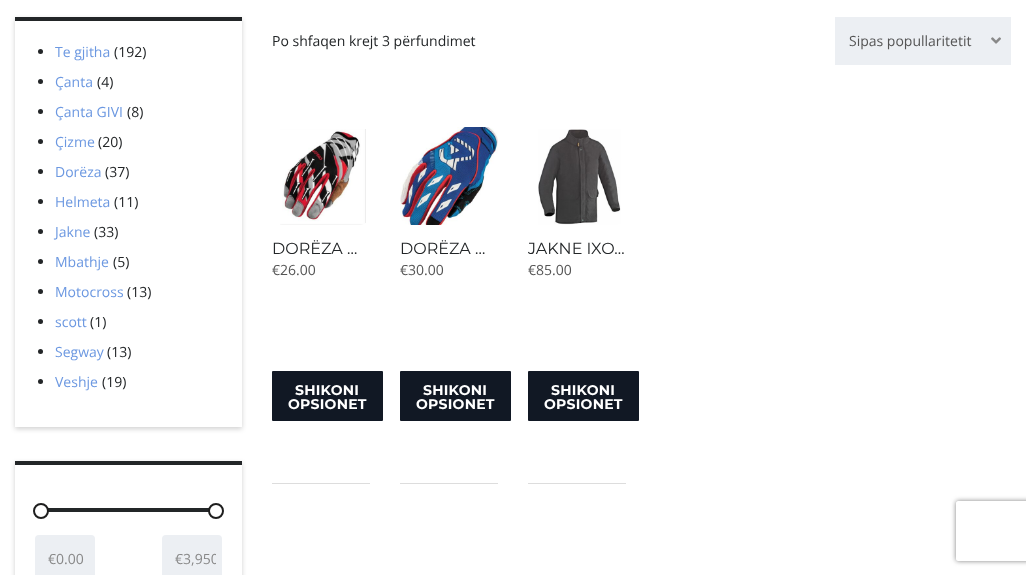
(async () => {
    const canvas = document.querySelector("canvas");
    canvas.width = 1026;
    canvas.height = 575;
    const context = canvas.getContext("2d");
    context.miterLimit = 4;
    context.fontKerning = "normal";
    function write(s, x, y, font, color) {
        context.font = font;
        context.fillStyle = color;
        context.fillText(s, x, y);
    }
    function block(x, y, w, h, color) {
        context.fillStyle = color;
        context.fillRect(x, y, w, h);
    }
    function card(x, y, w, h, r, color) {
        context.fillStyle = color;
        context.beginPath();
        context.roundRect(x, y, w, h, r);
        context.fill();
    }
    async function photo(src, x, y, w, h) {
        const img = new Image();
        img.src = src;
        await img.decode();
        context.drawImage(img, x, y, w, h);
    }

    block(0, 0, 1026, 575, "rgb(255, 255, 255)");
    context.save();
    context.beginPath();
    context.moveTo(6, 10);
    context.lineTo(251, 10);
    context.lineTo(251, 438);
    context.lineTo(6, 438);
    context.closePath();
    context.moveTo(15, 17);
    context.lineTo(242, 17);
    context.lineTo(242, 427);
    context.lineTo(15, 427);
    context.closePath();
    context.clip("evenodd");
    context.fillStyle = "rgba(0, 0, 0, 0.18)";
    context.filter = "blur(2.5px)";
    context.beginPath();
    context.rect(15, 19, 227, 410);
    context.fill();
    context.filter = "none";
    context.restore();
    block(15, 17, 227, 4, "rgb(35, 38, 40)");
    context.beginPath();
    context.arc(40.5, 51.5, 2.5, 0, Math.PI * 2);
    context.fill();
    write("Te gjitha", 55, 57, "14px Open Sans", "rgb(108, 152, 225)");
    write("(192)", 114, 57, "14px Open Sans", "rgb(35, 38, 40)");
    context.beginPath();
    context.arc(40.5, 81.5, 2.5, 0, Math.PI * 2);
    context.fill();
    write("Çanta", 55, 87, "14px Open Sans", "rgb(108, 152, 225)");
    write("(4)", 97, 87, "14px Open Sans", "rgb(35, 38, 40)");
    context.beginPath();
    context.arc(40.5, 111.5, 2.5, 0, Math.PI * 2);
    context.fill();
    write("Çanta GIVI", 55, 117, "14px Open Sans", "rgb(108, 152, 225)");
    write("(8)", 127, 117, "14px Open Sans", "rgb(35, 38, 40)");
    context.beginPath();
    context.arc(40.5, 141.5, 2.5, 0, Math.PI * 2);
    context.fill();
    write("Çizme", 55, 147, "14px Open Sans", "rgb(108, 152, 225)");
    write("(20)", 98, 147, "14px Open Sans", "rgb(35, 38, 40)");
    context.beginPath();
    context.arc(40.5, 171.5, 2.5, 0, Math.PI * 2);
    context.fill();
    write("Dorëza", 55, 177, "14px Open Sans", "rgb(108, 152, 225)");
    write("(37)", 105, 177, "14px Open Sans", "rgb(35, 38, 40)");
    context.beginPath();
    context.arc(40.5, 201.5, 2.5, 0, Math.PI * 2);
    context.fill();
    write("Helmeta", 55, 207, "14px Open Sans", "rgb(108, 152, 225)");
    write("(11)", 114, 207, "14px Open Sans", "rgb(35, 38, 40)");
    context.beginPath();
    context.arc(40.5, 231.5, 2.5, 0, Math.PI * 2);
    context.fill();
    write("Jakne", 55, 237, "14px Open Sans", "rgb(108, 152, 225)");
    write("(33)", 94, 237, "14px Open Sans", "rgb(35, 38, 40)");
    context.beginPath();
    context.arc(40.5, 261.5, 2.5, 0, Math.PI * 2);
    context.fill();
    write("Mbathje", 55, 267, "14px Open Sans", "rgb(108, 152, 225)");
    write("(5)", 113, 267, "14px Open Sans", "rgb(35, 38, 40)");
    context.beginPath();
    context.arc(40.5, 291.5, 2.5, 0, Math.PI * 2);
    context.fill();
    write("Motocross", 55, 297, "14px Open Sans", "rgb(108, 152, 225)");
    write("(13)", 127, 297, "14px Open Sans", "rgb(35, 38, 40)");
    context.beginPath();
    context.arc(40.5, 321.5, 2.5, 0, Math.PI * 2);
    context.fill();
    write("scott", 55, 327, "14px Open Sans", "rgb(108, 152, 225)");
    write("(1)", 90, 327, "14px Open Sans", "rgb(35, 38, 40)");
    context.beginPath();
    context.arc(40.5, 351.5, 2.5, 0, Math.PI * 2);
    context.fill();
    write("Segway", 55, 357, "14px Open Sans", "rgb(108, 152, 225)");
    write("(13)", 107, 357, "14px Open Sans", "rgb(35, 38, 40)");
    context.beginPath();
    context.arc(40.5, 381.5, 2.5, 0, Math.PI * 2);
    context.fill();
    write("Veshje", 55, 387, "14px Open Sans", "rgb(108, 152, 225)");
    write("(19)", 102, 387, "14px Open Sans", "rgb(35, 38, 40)");
    context.save();
    context.beginPath();
    context.moveTo(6, 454);
    context.lineTo(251, 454);
    context.lineTo(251, 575);
    context.lineTo(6, 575);
    context.closePath();
    context.moveTo(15, 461);
    context.lineTo(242, 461);
    context.lineTo(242, 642);
    context.lineTo(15, 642);
    context.closePath();
    context.clip("evenodd");
    context.fillStyle = "rgba(0, 0, 0, 0.18)";
    context.filter = "blur(2.5px)";
    context.beginPath();
    context.rect(15, 463, 227, 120);
    context.fill();
    context.filter = "none";
    context.restore();
    block(15, 461, 227, 4, "rgb(35, 38, 40)");
    block(48, 508, 161, 4, "rgb(35, 38, 40)");
    context.fillStyle = "rgb(255, 255, 255)";
    context.beginPath();
    context.arc(41, 511, 7, 0, Math.PI * 2);
    context.fill();
    context.strokeStyle = "rgb(30, 30, 30)";
    context.lineWidth = 2;
    context.stroke();
    context.beginPath();
    context.arc(216, 511, 7, 0, Math.PI * 2);
    context.fill();
    context.stroke();
    card(35, 535, 60, 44, 4, "rgb(236, 239, 243)");
    write("€0.00", 48, 564, "14px Open Sans", "rgb(136, 136, 136)");
    card(162, 535, 60, 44, 4, "rgb(236, 239, 243)");
    context.save();
    context.beginPath();
    context.rect(175, 535, 41, 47);
    context.clip();
    write("€3,950", 175, 564, "14px Open Sans", "rgb(136, 136, 136)");
    context.restore();
    write("Po shfaqen krejt 3 përfundimet", 272, 46, "14px Open Sans", "rgb(35, 38, 40)");
    block(835, 17, 176, 48, "rgb(236, 239, 243)");
    write("Sipas popullaritetit", 849, 46, "14px Open Sans", "rgb(85, 85, 85)");
    await photo("media/1.png", 991, 37, 10, 7);
    block(272, 483, 98, 1, "rgb(221, 221, 221)");
    await photo("media/2.png", 280, 129, 86, 96);
    write("DORËZA …", 272, 254, "16px Montserrat", "rgb(35, 38, 40)");
    write("€26.00", 272, 275, "14px Open Sans", "rgb(85, 85, 85)");
    card(272, 371, 111, 50, 1, "rgb(17, 24, 36)");
    context.letterSpacing = "0.25px";
    write("SHIKONI", 295, 395, "bold 14px Montserrat", "rgb(255, 255, 255)");
    write("OPSIONET", 288, 409, "bold 14px Montserrat", "rgb(255, 255, 255)");
    block(400, 483, 98, 1, "rgb(221, 221, 221)");
    await photo("media/3.png", 400, 127, 98, 98);
    context.letterSpacing = "0px";
    write("DORËZA …", 400, 254, "16px Montserrat", "rgb(35, 38, 40)");
    write("€30.00", 400, 275, "14px Open Sans", "rgb(85, 85, 85)");
    card(400, 371, 111, 50, 1, "rgb(17, 24, 36)");
    context.letterSpacing = "0.25px";
    write("SHIKONI", 423, 395, "bold 14px Montserrat", "rgb(255, 255, 255)");
    write("OPSIONET", 416, 409, "bold 14px Montserrat", "rgb(255, 255, 255)");
    block(528, 483, 98, 1, "rgb(221, 221, 221)");
    await photo("media/4.png", 538, 129, 83, 96);
    context.letterSpacing = "0px";
    write("JAKNE IXO…", 528, 254, "16px Montserrat", "rgb(35, 38, 40)");
    write("€85.00", 528, 275, "14px Open Sans", "rgb(85, 85, 85)");
    card(528, 371, 111, 50, 1, "rgb(17, 24, 36)");
    context.letterSpacing = "0.25px";
    write("SHIKONI", 551, 395, "bold 14px Montserrat", "rgb(255, 255, 255)");
    write("OPSIONET", 544, 409, "bold 14px Montserrat", "rgb(255, 255, 255)");
    context.save();
    context.beginPath();
    context.moveTo(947, 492);
    context.lineTo(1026, 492);
    context.lineTo(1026, 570);
    context.lineTo(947, 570);
    context.closePath();
    context.moveTo(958, 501);
    context.lineTo(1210, 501);
    context.bezierCurveTo(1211, 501, 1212, 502, 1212, 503);
    context.lineTo(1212, 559);
    context.bezierCurveTo(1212, 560, 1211, 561, 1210, 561);
    context.lineTo(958, 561);
    context.bezierCurveTo(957, 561, 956, 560, 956, 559);
    context.lineTo(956, 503);
    context.bezierCurveTo(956, 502, 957, 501, 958, 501);
    context.closePath();
    context.clip("evenodd");
    context.fillStyle = "rgb(128, 128, 128)";
    context.filter = "blur(2.5px)";
    context.beginPath();
    context.roundRect(956, 501, 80, 60, 2);
    context.fill();
    context.filter = "none";
    context.restore();
})();
